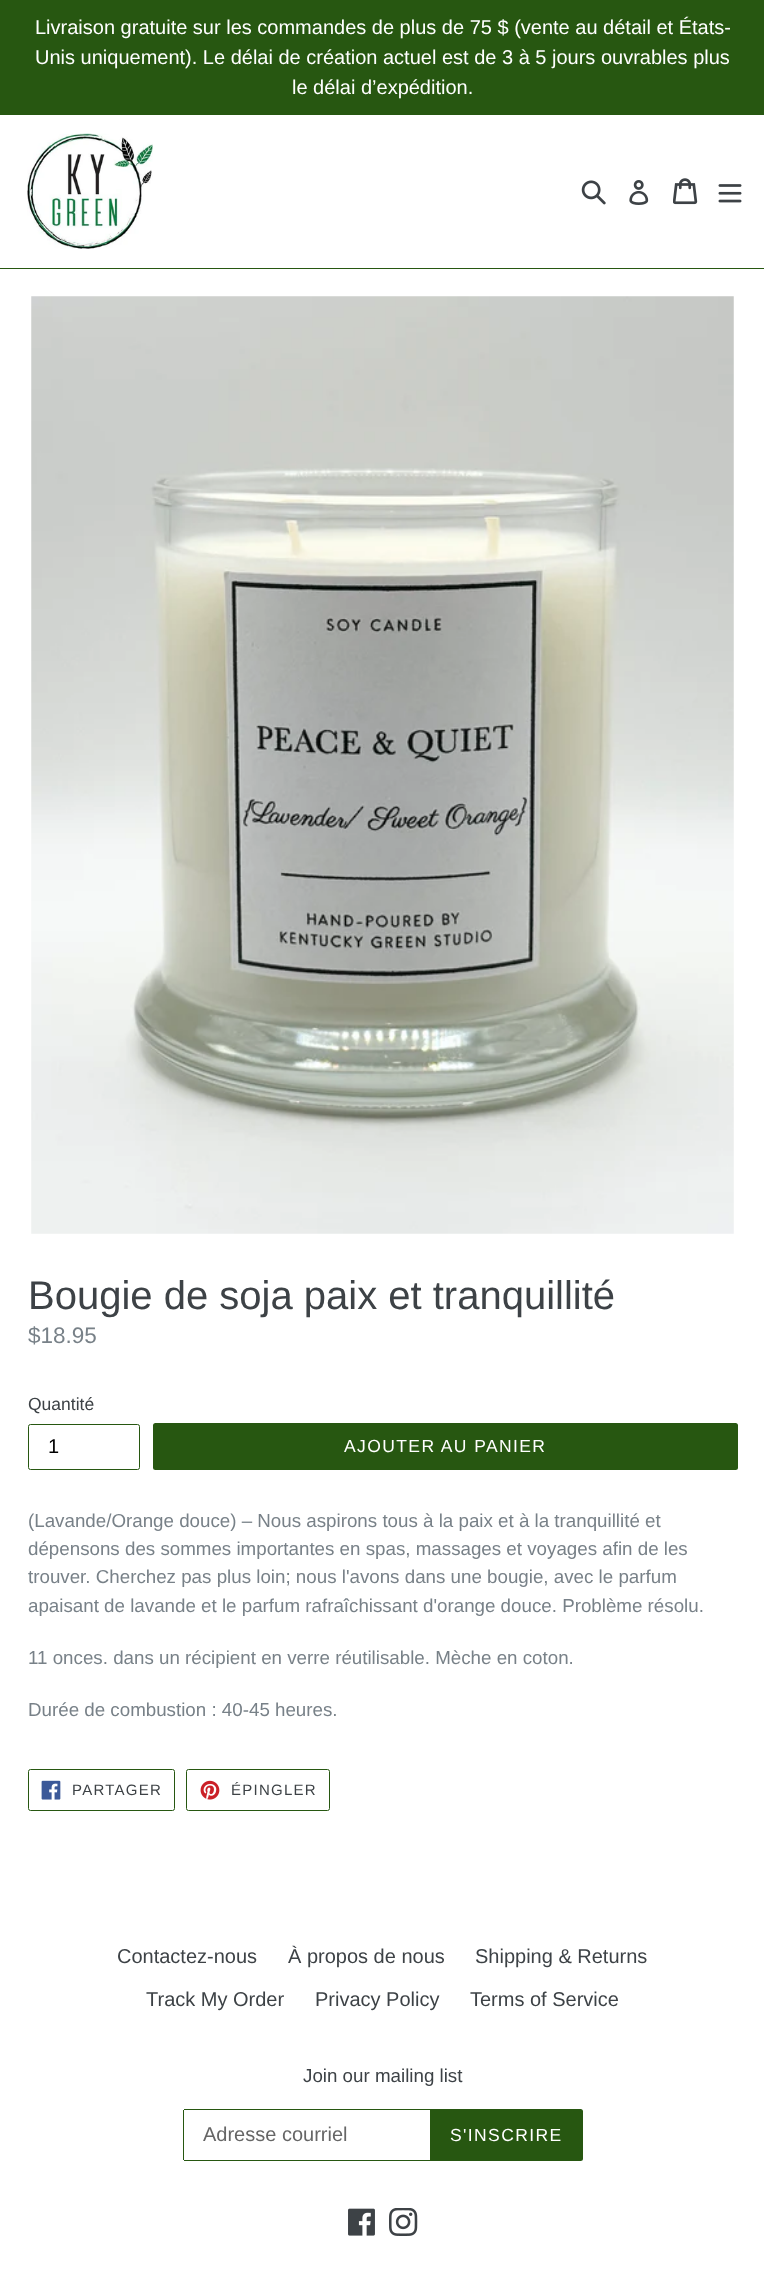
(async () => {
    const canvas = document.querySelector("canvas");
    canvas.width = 764;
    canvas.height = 2269;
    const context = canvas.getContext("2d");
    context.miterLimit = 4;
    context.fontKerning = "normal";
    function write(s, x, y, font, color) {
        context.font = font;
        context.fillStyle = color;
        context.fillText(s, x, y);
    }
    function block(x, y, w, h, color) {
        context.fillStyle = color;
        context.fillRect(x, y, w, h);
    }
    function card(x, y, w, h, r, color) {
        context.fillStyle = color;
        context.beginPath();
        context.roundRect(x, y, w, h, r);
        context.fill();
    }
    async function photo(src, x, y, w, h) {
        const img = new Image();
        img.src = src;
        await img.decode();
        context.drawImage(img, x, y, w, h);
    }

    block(0, 0, 764, 2269, "rgb(255, 255, 255)");
    block(0, 0, 764, 115, "rgb(39, 87, 17)");
    write("Livraison gratuite sur les commandes de plus de 75 $ (vente au détail et États-", 35, 34, "20px Liberation Sans", "rgb(255, 255, 255)");
    write("Unis uniquement). Le délai de création actuel est de 3 à 5 jours ouvrables plus", 35, 64, "20px Liberation Sans", "rgb(255, 255, 255)");
    write("le délai d’expédition.", 292, 94, "20px Liberation Sans", "rgb(255, 255, 255)");
    block(0, 268, 764, 1, "rgb(39, 87, 17)");
    await photo("media/1.png", 27, 133, 126, 116);
    await photo("media/2.png", 581, 180, 25, 25);
    await photo("media/3.png", 629, 180, 20, 25);
    await photo("media/4.png", 673, 178, 25, 27);
    await photo("media/5.png", 718, 184, 24, 19);
    await photo("media/6.png", 31, 296, 703, 938);
    write("Bougie de soja paix et tranquillité", 28, 1309, "40px Liberation Sans", "rgb(61, 66, 70)");
    write("$18.95", 28, 1343, "22.5px Liberation Sans", "rgb(120, 129, 136)");
    write("Quantité", 28, 1410, "17.5px Liberation Sans", "rgb(61, 66, 70)");
    context.beginPath();
    context.roundRect(28.5, 1424.5, 111, 45, 2);
    context.strokeStyle = "rgb(39, 87, 17)";
    context.stroke();
    write("1", 48, 1453, "20px Liberation Sans", "rgb(0, 0, 0)");
    card(153, 1423, 585, 47, 2.5, "rgb(39, 87, 17)");
    context.letterSpacing = "1.4px";
    write("AJOUTER AU PANIER", 344, 1452, "17.5px Liberation Sans", "rgb(255, 255, 255)");
    context.letterSpacing = "0px";
    write("(Lavande/Orange douce) – Nous aspirons tous à la paix et à la tranquillité et", 28, 1527, "18.75px Liberation Sans", "rgb(120, 129, 136)");
    write("dépensons des sommes importantes en spas, massages et voyages afin de les", 28, 1555, "18.75px Liberation Sans", "rgb(120, 129, 136)");
    write("trouver. Cherchez pas plus loin; nous l'avons dans une bougie, avec le parfum", 28, 1583, "18.75px Liberation Sans", "rgb(120, 129, 136)");
    write("apaisant de lavande et le parfum rafraîchissant d'orange douce. Problème résolu.", 28, 1612, "18.75px Liberation Sans", "rgb(120, 129, 136)");
    write("11 onces. dans un récipient en verre réutilisable. Mèche en coton.", 28, 1664, "18.75px Liberation Sans", "rgb(120, 129, 136)");
    write("Durée de combustion : 40-45 heures.", 28, 1716, "18.75px Liberation Sans", "rgb(120, 129, 136)");
    context.beginPath();
    context.roundRect(28.5, 1769.5, 146, 41, 2);
    context.stroke();
    await photo("media/7.png", 41, 1780, 20, 20);
    context.letterSpacing = "1.25px";
    write("PARTAGER", 72, 1795, "15px Liberation Sans", "rgb(61, 66, 70)");
    context.beginPath();
    context.roundRect(186.5, 1769.5, 143, 41, 2);
    context.stroke();
    await photo("media/8.png", 200, 1780, 20, 20);
    write("ÉPINGLER", 231, 1795, "15px Liberation Sans", "rgb(61, 66, 70)");
    context.letterSpacing = "0px";
    write("Contactez-nous", 117, 1963, "20px Liberation Sans", "rgb(61, 66, 70)");
    write("À propos de nous", 288, 1963, "20px Liberation Sans", "rgb(61, 66, 70)");
    write("Shipping & Returns", 475, 1963, "20px Liberation Sans", "rgb(61, 66, 70)");
    write("Track My Order", 146, 2006, "20px Liberation Sans", "rgb(61, 66, 70)");
    write("Privacy Policy", 315, 2006, "20px Liberation Sans", "rgb(61, 66, 70)");
    write("Terms of Service", 470, 2006, "20px Liberation Sans", "rgb(61, 66, 70)");
    write("Join our mailing list", 303, 2082, "18.75px Liberation Sans", "rgb(61, 66, 70)");
    block(184, 2109, 246, 1, "rgb(39, 87, 17)");
    block(184, 2160, 246, 1, "rgb(39, 87, 17)");
    block(183, 2110, 1, 50, "rgb(39, 87, 17)");
    write("Adresse courriel", 203, 2141, "20px Liberation Sans", "rgb(102, 102, 102)");
    context.fillStyle = "rgb(39, 87, 17)";
    context.beginPath();
    context.roundRect(430, 2109, 153, 52, [0, 2.5, 2.5, 0]);
    context.fill();
    context.letterSpacing = "1.4px";
    write("S'INSCRIRE", 450, 2141, "17.5px Liberation Sans", "rgb(255, 255, 255)");
    await photo("media/9.png", 348, 2208, 27, 28);
    await photo("media/10.png", 389, 2208, 29, 28);
})();
